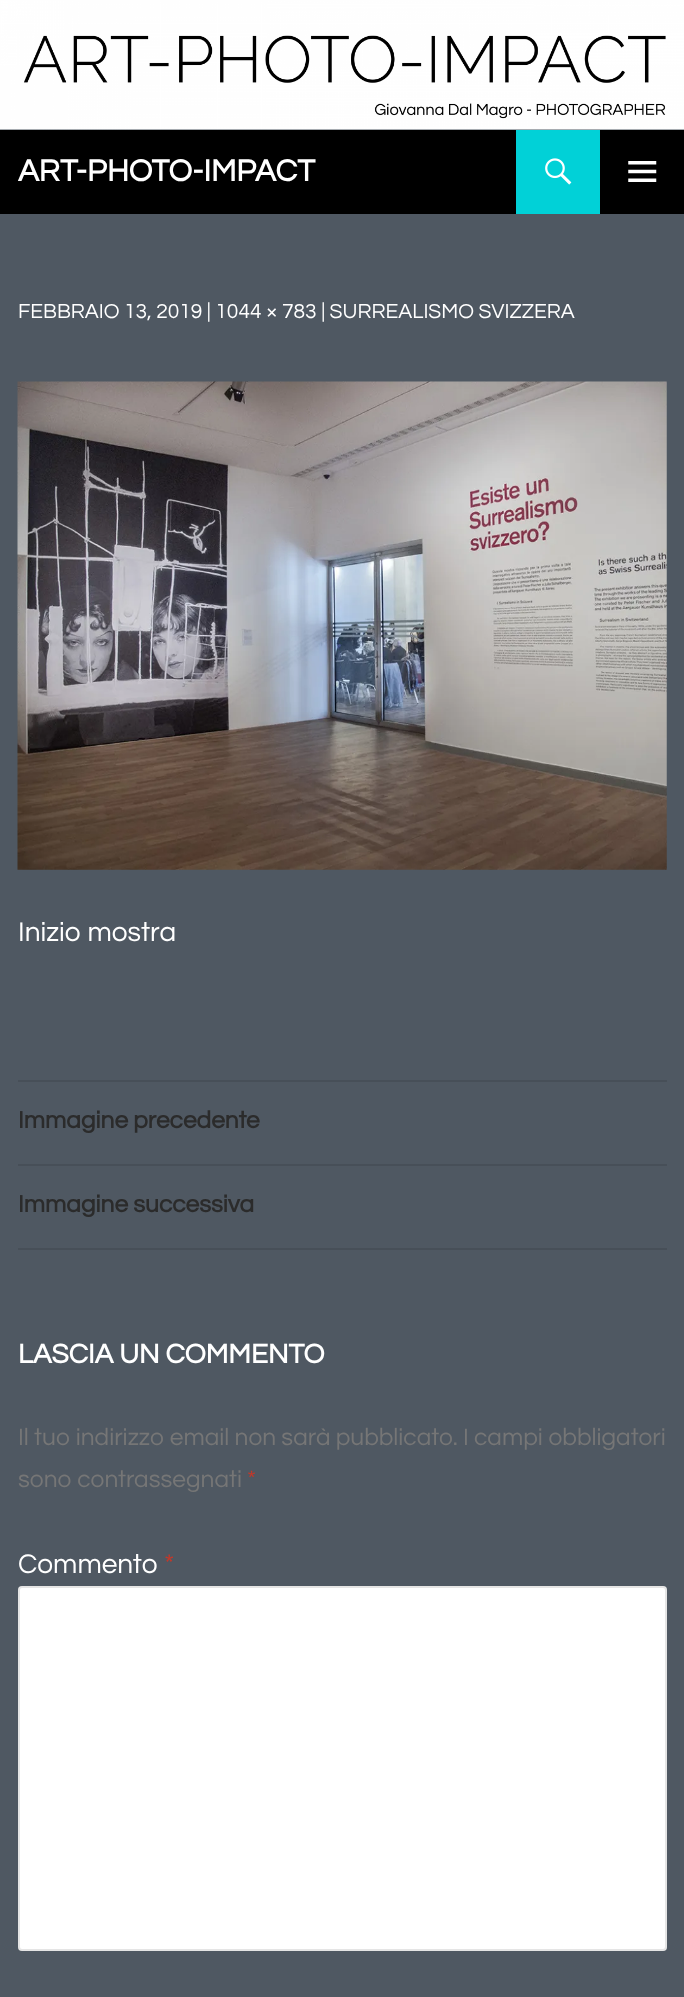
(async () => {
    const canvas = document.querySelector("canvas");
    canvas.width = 684;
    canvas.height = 1997;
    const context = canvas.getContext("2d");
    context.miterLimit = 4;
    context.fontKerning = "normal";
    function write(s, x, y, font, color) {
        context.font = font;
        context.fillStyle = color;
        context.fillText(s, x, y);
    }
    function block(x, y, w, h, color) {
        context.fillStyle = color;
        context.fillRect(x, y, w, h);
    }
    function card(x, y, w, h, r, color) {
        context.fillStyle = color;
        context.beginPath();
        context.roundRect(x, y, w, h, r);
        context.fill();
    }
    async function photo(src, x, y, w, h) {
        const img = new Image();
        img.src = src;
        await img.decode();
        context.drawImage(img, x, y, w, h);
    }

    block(0, 0, 684, 1997, "rgb(79, 88, 98)");
    await photo("media/1.png", 0, 0, 684, 130);
    block(0, 130, 684, 84, "rgb(0, 0, 0)");
    write("ART-PHOTO-IMPACT", 18, 181, "bold 31.5px Questrial", "rgb(255, 255, 255)");
    block(516, 130, 84, 84, "rgb(1, 209, 215)");
    await photo("media/2.png", 545, 158, 27, 27);
    await photo("media/3.png", 628, 161, 29, 21);
    write("FEBBRAIO 13, 2019 | 1044 × 783 | SURREALISMO SVIZZERA", 18, 318, "21px Questrial", "rgb(255, 255, 255)");
    await photo("media/4.png", 17, 381, 650, 489);
    write("Inizio mostra", 18, 941, "28px Questrial", "rgb(255, 255, 255)");
    block(18, 1080, 649, 2, "rgb(71, 79, 88)");
    block(18, 1164, 649, 2, "rgb(71, 79, 88)");
    write("Immagine precedente", 18, 1128, "bold 24.5px Questrial", "rgb(43, 43, 43)");
    block(18, 1248, 649, 2, "rgb(71, 79, 88)");
    write("Immagine successiva", 18, 1212, "bold 24.5px Questrial", "rgb(43, 43, 43)");
    write("LASCIA UN COMMENTO", 18, 1363, "bold 28px Questrial", "rgb(255, 255, 255)");
    write("Il tuo indirizzo email non sarà pubblicato. I campi obbligatori", 18, 1445, "24.5px Questrial", "rgb(118, 118, 118)");
    write("sono contrassegnati", 18, 1487, "24.5px Questrial", "rgb(118, 118, 118)");
    write("*", 247, 1487, "24.5px Questrial", "rgb(192, 57, 43)");
    write("Commento", 18, 1573, "28px Questrial", "rgb(255, 255, 255)");
    write("*", 164, 1573, "28px Questrial", "rgb(192, 57, 43)");
    card(18, 1586, 649, 365, 4, "rgb(255, 255, 255)");
    context.beginPath();
    context.roundRect(19, 1587, 647, 363, 3);
    context.strokeStyle = "rgba(0, 0, 0, 0.1)";
    context.lineWidth = 2;
    context.stroke();
})();
